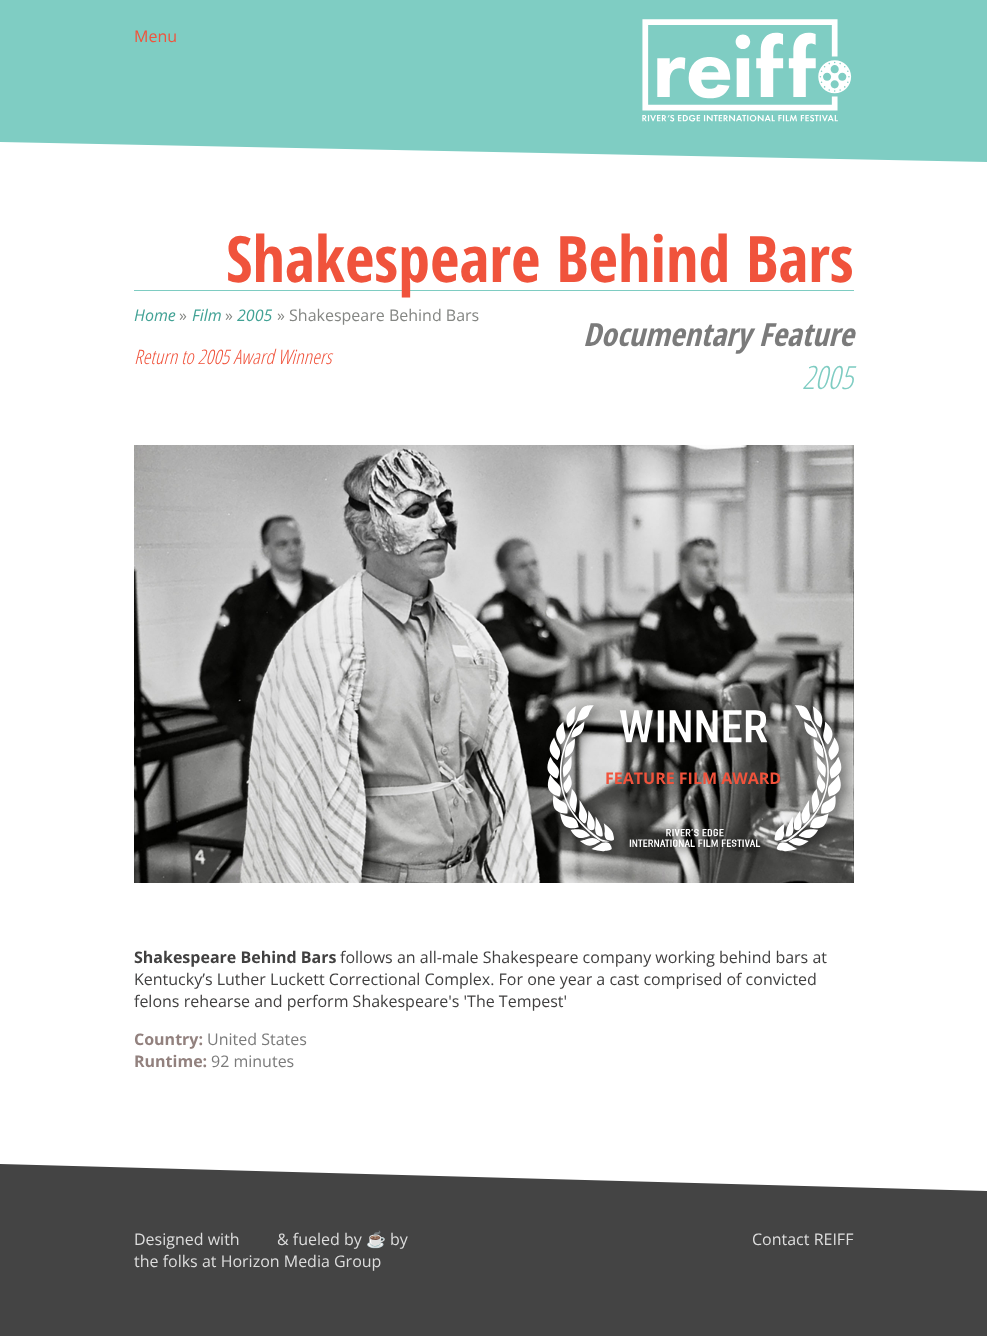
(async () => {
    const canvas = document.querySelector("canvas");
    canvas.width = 987;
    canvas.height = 1336;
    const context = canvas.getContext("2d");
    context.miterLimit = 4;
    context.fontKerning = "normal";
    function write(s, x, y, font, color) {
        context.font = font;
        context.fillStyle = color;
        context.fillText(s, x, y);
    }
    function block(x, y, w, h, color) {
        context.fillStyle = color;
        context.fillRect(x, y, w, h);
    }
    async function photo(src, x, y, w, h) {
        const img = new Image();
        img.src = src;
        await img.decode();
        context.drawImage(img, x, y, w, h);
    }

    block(0, 0, 987, 1336, "rgb(255, 255, 255)");
    context.fillStyle = "rgb(127, 205, 195)";
    context.beginPath();
    context.moveTo(0, 0);
    context.lineTo(0, 142);
    context.lineTo(987, 162);
    context.lineTo(987, 0);
    context.closePath();
    context.fill();
    write("Menu", 134, 42, "16px Open Sans", "rgb(240, 83, 60)");
    await photo("media/1.png", 642, 19, 210, 103);
    block(134, 290, 720, 1, "rgb(126, 204, 194)");
    write("Shakespeare Behind Bars", 226, 282, "bold 64px Open Sans Condensed", "rgb(240, 83, 60)");
    write("Home", 134, 321, "italic 16px Open Sans", "rgb(66, 162, 149)");
    write("»", 179, 321, "16px Open Sans", "rgb(132, 134, 131)");
    write("Film", 192, 321, "italic 16px Open Sans", "rgb(66, 162, 149)");
    write("»", 225, 321, "16px Open Sans", "rgb(132, 134, 131)");
    write("2005", 237, 321, "italic 16px Open Sans", "rgb(66, 162, 149)");
    write("» Shakespeare Behind Bars", 277, 321, "16px Open Sans", "rgb(132, 134, 131)");
    write("Documentary Feature", 583, 346, "italic bold 32px Open Sans Condensed", "rgb(123, 123, 123)");
    write("Return to 2005 Award Winners", 134, 364, "italic 300 20px Open Sans Condensed", "rgb(240, 83, 60)");
    write("2005", 802, 389, "italic 300 32px Open Sans Condensed", "rgb(126, 204, 194)");
    await photo("media/2.png", 134, 445, 720, 438);
    await photo("media/3.png", 547, 700, 307, 161);
    write("FEATURE FILM AWARD", 605, 784, "bold 16px Open Sans", "rgb(240, 83, 60)");
    write("Shakespeare Behind Bars", 134, 963, "bold 16px Open Sans", "rgb(65, 64, 64)");
    write("follows an all-male Shakespeare company working behind bars at", 340, 963, "16px Open Sans", "rgb(65, 64, 64)");
    write("Kentucky’s Luther Luckett Correctional Complex. For one year a cast comprised of convicted", 134, 985, "16px Open Sans", "rgb(65, 64, 64)");
    write("felons rehearse and perform Shakespeare's 'The Tempest'", 134, 1007, "16px Open Sans", "rgb(65, 64, 64)");
    write("Country:", 134, 1045, "bold 16px Open Sans", "rgb(146, 129, 126)");
    write("United States", 207, 1045, "16px Open Sans", "rgb(123, 123, 123)");
    write("Runtime:", 134, 1067, "bold 16px Open Sans", "rgb(146, 129, 126)");
    write("92 minutes", 211, 1067, "16px Open Sans", "rgb(123, 123, 123)");
    context.fillStyle = "rgb(68, 68, 68)";
    context.beginPath();
    context.moveTo(0, 1164);
    context.lineTo(0, 1336);
    context.lineTo(987, 1336);
    context.lineTo(987, 1191);
    context.closePath();
    context.fill();
    write("Designed with", 134, 1245, "16px Open Sans", "rgb(221, 221, 221)");
    write("& fueled by", 277, 1245, "16px Open Sans", "rgb(221, 221, 221)");
    write("☕", 366, 1245, "16px Noto Color Emoji", "rgb(221, 221, 221)");
    write("by", 390, 1245, "16px Open Sans", "rgb(221, 221, 221)");
    write("the folks at Horizon Media Group", 134, 1267, "16px Open Sans", "rgb(221, 221, 221)");
    write("Contact REIFF", 752, 1245, "16px Open Sans", "rgb(221, 221, 221)");
})();
